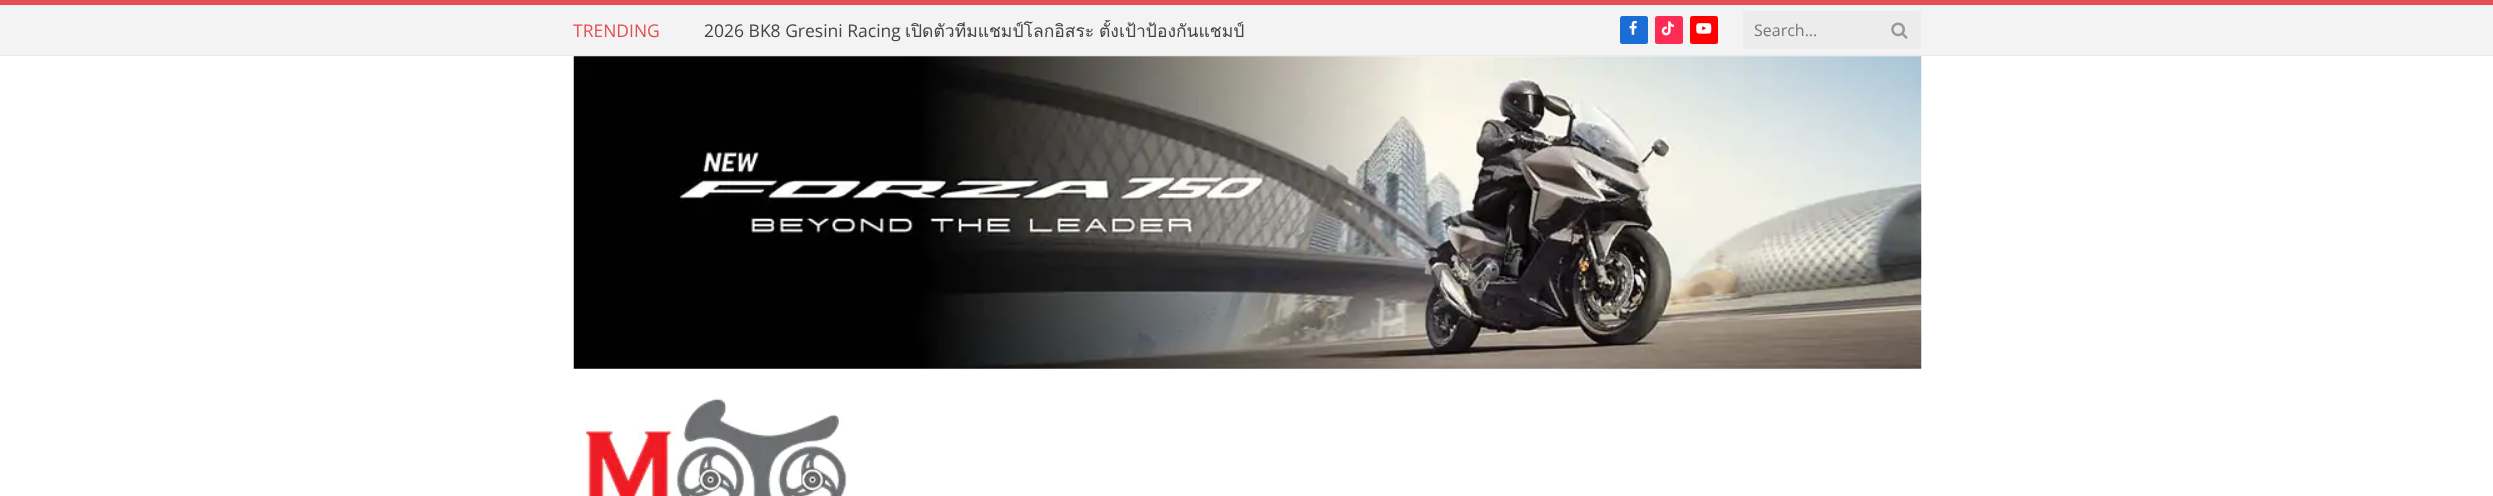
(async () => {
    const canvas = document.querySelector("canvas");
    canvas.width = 2493;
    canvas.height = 496;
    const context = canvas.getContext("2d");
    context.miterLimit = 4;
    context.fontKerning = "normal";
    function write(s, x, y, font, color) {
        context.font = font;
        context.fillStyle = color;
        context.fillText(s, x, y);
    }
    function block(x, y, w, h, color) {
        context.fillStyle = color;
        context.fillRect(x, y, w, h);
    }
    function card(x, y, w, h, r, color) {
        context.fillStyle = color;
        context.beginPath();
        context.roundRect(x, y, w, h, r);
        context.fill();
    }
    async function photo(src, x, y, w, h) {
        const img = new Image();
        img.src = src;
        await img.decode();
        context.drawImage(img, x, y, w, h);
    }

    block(0, 0, 2493, 496, "rgb(255, 255, 255)");
    block(0, 5, 2493, 50, "rgb(243, 243, 243)");
    block(0, 0, 2493, 5, "rgb(229, 78, 83)");
    block(0, 55, 2493, 1, "rgb(232, 232, 232)");
    write("TRENDING", 573, 37, "17.5px Open Sans", "rgb(229, 78, 83)");
    write("2026 BK8 Gresini Racing", 704, 37, "17.5px Open Sans", "rgb(68, 68, 68)");
    write("เปิดตัวทีมแชมป์โลกอิสระ", 905, 37, "17.5px Loma", "rgb(68, 68, 68)");
    context.save();
    context.beginPath();
    context.rect(704, 20, 562, 23);
    context.clip();
    write("ตั้งเป้าป้องกันแชมป์", 1099, 37, "17.5px Loma", "rgb(68, 68, 68)");
    context.restore();
    card(1620, 16, 28, 28, 2.5, "rgb(26, 109, 212)");
    await photo("media/1.png", 1629, 20, 8, 15);
    card(1655, 16, 28, 28, 2.5, "rgb(254, 44, 85)");
    await photo("media/2.png", 1661, 21, 13, 15);
    card(1690, 16, 28, 28, 2.5, "rgb(255, 0, 0)");
    await photo("media/3.png", 1696, 23, 16, 11);
    card(1743, 11, 178, 38, 2.5, "rgb(236, 236, 236)");
    write("Search...", 1754, 36, "16px Open Sans", "rgb(119, 119, 119)");
    await photo("media/4.png", 1891, 22, 17, 17);
    await photo("media/5.png", 573, 56, 1349, 313);
    await photo("media/6.png", 586, 395, 261, 101);
})();
